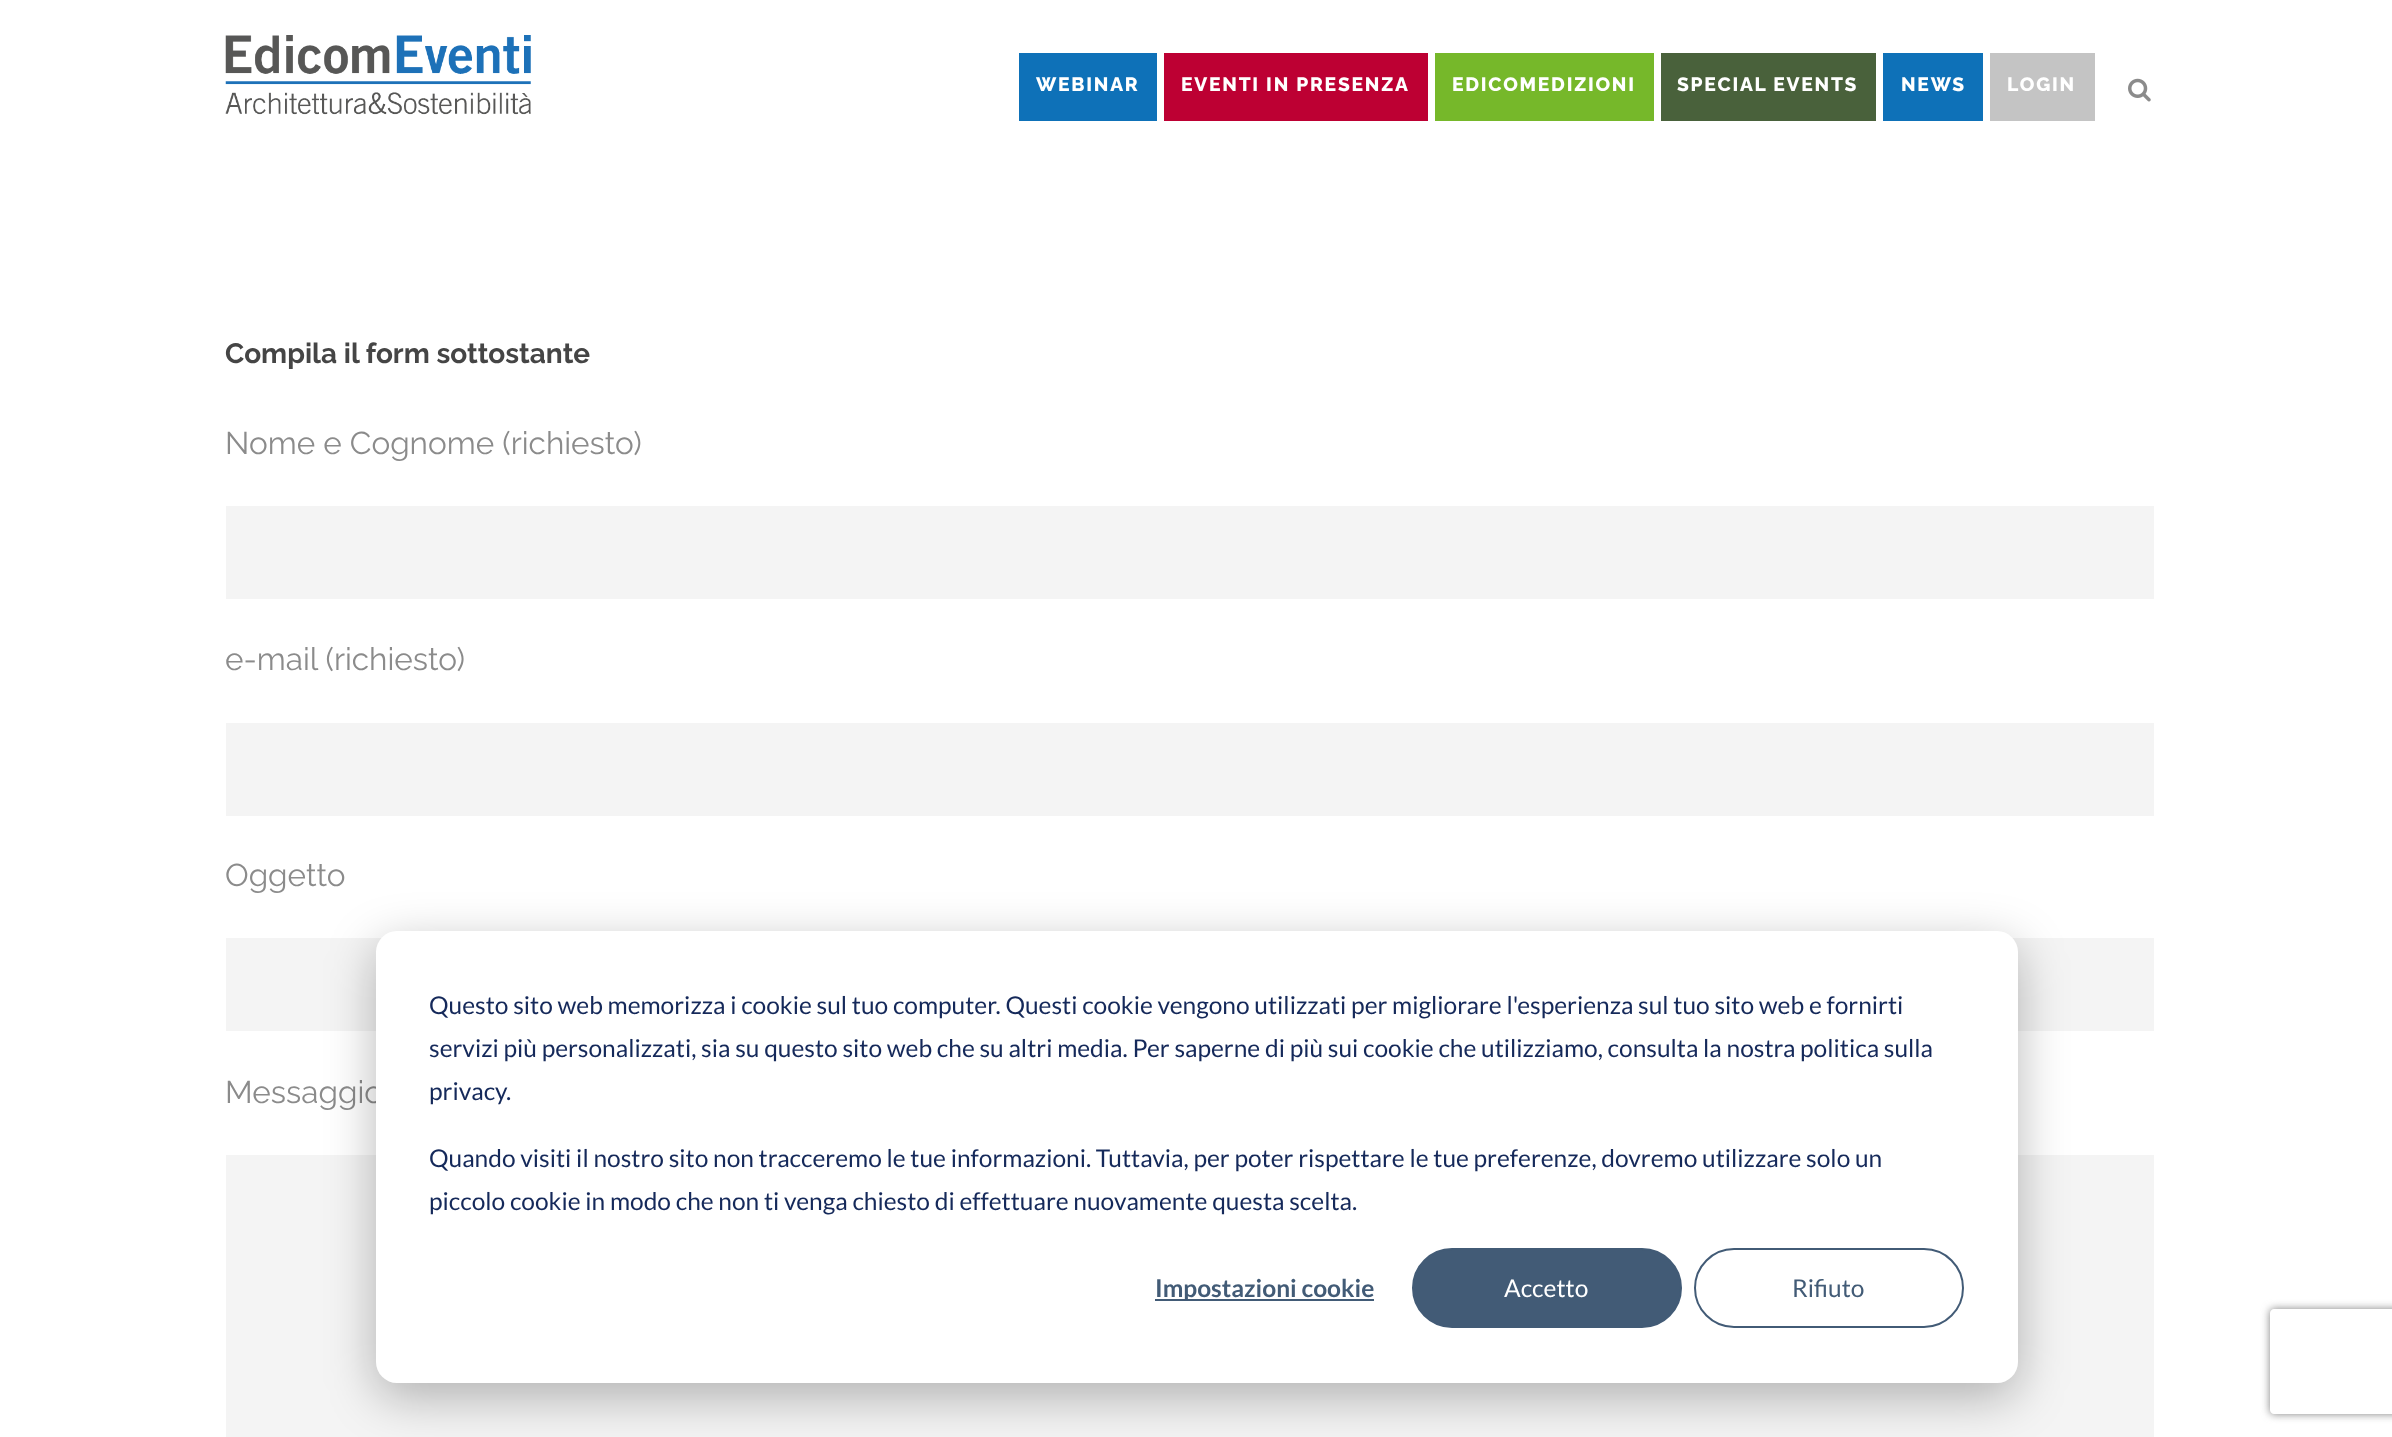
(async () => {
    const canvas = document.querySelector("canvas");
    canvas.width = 2392;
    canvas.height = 1437;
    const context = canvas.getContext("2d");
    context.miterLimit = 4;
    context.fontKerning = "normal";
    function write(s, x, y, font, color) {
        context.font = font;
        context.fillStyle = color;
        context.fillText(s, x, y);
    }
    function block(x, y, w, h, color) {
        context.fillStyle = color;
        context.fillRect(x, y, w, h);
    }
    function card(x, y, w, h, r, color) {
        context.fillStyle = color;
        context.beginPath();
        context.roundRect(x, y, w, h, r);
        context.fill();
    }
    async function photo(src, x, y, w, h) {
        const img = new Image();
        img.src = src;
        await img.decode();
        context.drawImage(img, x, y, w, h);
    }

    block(0, 0, 2392, 1437, "rgb(255, 255, 255)");
    await photo("media/1.png", 225, 35, 306, 80);
    block(1019, 53, 138, 68, "rgb(14, 113, 184)");
    context.letterSpacing = "1.75px";
    write("WEBINAR", 1036, 91, "800 19.25px Raleway", "rgb(255, 255, 255)");
    block(1164, 53, 264, 68, "rgb(189, 0, 51)");
    write("EVENTI IN PRESENZA", 1181, 91, "800 19.25px Raleway", "rgb(255, 255, 255)");
    block(1435, 53, 219, 68, "rgb(118, 184, 42)");
    write("EDICOMEDIZIONI", 1452, 91, "800 19.25px Raleway", "rgb(255, 255, 255)");
    block(1661, 53, 215, 68, "rgb(73, 97, 59)");
    write("SPECIAL EVENTS", 1677, 91, "800 19.25px Raleway", "rgb(255, 255, 255)");
    block(1883, 53, 100, 68, "rgb(14, 113, 184)");
    write("NEWS", 1901, 91, "800 19.25px Raleway", "rgb(255, 255, 255)");
    block(1990, 53, 105, 68, "rgb(196, 196, 196)");
    write("LOGIN", 2007, 91, "800 19.25px Raleway", "rgb(255, 255, 255)");
    await photo("media/2.png", 2128, 78, 23, 24);
    context.letterSpacing = "0px";
    write("Compila il form sottostante", 225, 363, "bold 28px Raleway", "rgb(69, 69, 69)");
    write("Nome e Cognome (richiesto)", 225, 454, "31.5px Raleway", "rgb(139, 139, 139)");
    block(226, 506, 1928, 93, "rgb(244, 244, 244)");
    write("e-mail (richiesto)", 225, 670, "31.5px Raleway", "rgb(139, 139, 139)");
    block(226, 723, 1928, 93, "rgb(244, 244, 244)");
    write("Oggetto", 225, 886, "31.5px Raleway", "rgb(139, 139, 139)");
    block(226, 938, 1928, 93, "rgb(244, 244, 244)");
    write("Messaggio", 225, 1103, "31.5px Raleway", "rgb(139, 139, 139)");
    block(226, 1155, 1928, 282, "rgb(244, 244, 244)");
    context.fillStyle = "rgba(0, 0, 0, 0.28)";
    context.filter = "blur(24.5px)";
    context.beginPath();
    context.roundRect(376, 945, 1642, 452, 21);
    context.fill();
    context.filter = "none";
    card(376, 931, 1642, 452, 21, "rgb(255, 255, 255)");
    write("Questo sito web memorizza i cookie sul tuo computer. Questi cookie vengono utilizzati per migliorare l'esperienza sul tuo sito web e fornirti", 429, 1014, "24.5px Lato", "rgb(21, 41, 90)");
    write("servizi più personalizzati, sia su questo sito web che su altri media. Per saperne di più sui cookie che utilizziamo, consulta la nostra politica sulla", 429, 1057, "24.5px Lato", "rgb(21, 41, 90)");
    write("privacy.", 429, 1100, "24.5px Lato", "rgb(21, 41, 90)");
    write("Quando visiti il nostro sito non tracceremo le tue informazioni. Tuttavia, per poter rispettare le tue preferenze, dovremo utilizzare solo un", 429, 1167, "24.5px Lato", "rgb(21, 41, 90)");
    write("piccolo cookie in modo che non ti venga chiesto di effettuare nuovamente questa scelta.", 429, 1210, "24.5px Lato", "rgb(21, 41, 90)");
    block(1155, 1299, 219, 2, "rgb(66, 91, 118)");
    write("Impostazioni cookie", 1155, 1297, "bold 24.5px Lato", "rgb(66, 91, 118)");
    context.beginPath();
    context.roundRect(1413, 1249, 268, 78, 39);
    context.fill();
    context.strokeStyle = "rgb(66, 91, 118)";
    context.lineWidth = 2;
    context.stroke();
    write("Accetto", 1504, 1297, "24.5px Lato", "rgb(255, 255, 255)");
    context.beginPath();
    context.roundRect(1695, 1249, 268, 78, 39);
    context.stroke();
    write("Rifiuto", 1792, 1297, "24.5px Lato", "rgb(66, 91, 118)");
    context.save();
    context.beginPath();
    context.moveTo(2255, 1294);
    context.lineTo(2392, 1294);
    context.lineTo(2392, 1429);
    context.lineTo(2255, 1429);
    context.closePath();
    context.moveTo(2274, 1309);
    context.lineTo(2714, 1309);
    context.bezierCurveTo(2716, 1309, 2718, 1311, 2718, 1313);
    context.lineTo(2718, 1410);
    context.bezierCurveTo(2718, 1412, 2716, 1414, 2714, 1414);
    context.lineTo(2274, 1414);
    context.bezierCurveTo(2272, 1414, 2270, 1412, 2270, 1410);
    context.lineTo(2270, 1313);
    context.bezierCurveTo(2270, 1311, 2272, 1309, 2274, 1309);
    context.closePath();
    context.clip("evenodd");
    context.fillStyle = "rgb(128, 128, 128)";
    context.filter = "blur(4.5px)";
    context.beginPath();
    context.roundRect(2270, 1309, 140, 105, 4);
    context.fill();
    context.filter = "none";
    context.restore();
})();
